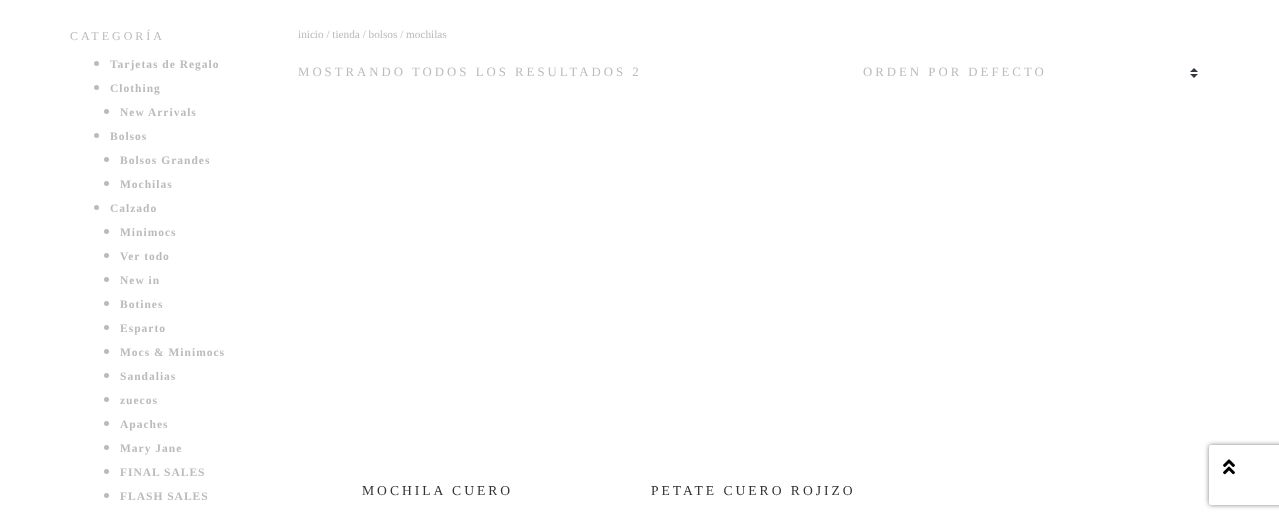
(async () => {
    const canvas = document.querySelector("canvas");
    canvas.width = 1279;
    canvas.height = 519;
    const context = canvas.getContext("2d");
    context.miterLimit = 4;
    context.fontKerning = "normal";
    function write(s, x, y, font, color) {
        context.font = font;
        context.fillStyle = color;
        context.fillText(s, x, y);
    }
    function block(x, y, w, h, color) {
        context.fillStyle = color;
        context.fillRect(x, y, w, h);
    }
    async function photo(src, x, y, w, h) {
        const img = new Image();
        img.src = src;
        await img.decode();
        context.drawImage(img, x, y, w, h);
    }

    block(0, 0, 1279, 519, "rgb(255, 255, 255)");
    context.letterSpacing = "3px";
    write("CATEGORÍA", 70, 40, "12px Liberation Serif", "rgb(187, 187, 187)");
    context.beginPath();
    context.arc(96.5, 63.5, 2.5, 0, Math.PI * 2);
    context.fill();
    context.letterSpacing = "1px";
    write("Tarjetas de Regalo", 110, 68, "bold 11.5px Liberation Serif", "rgb(187, 187, 187)");
    context.beginPath();
    context.arc(96.5, 87.5, 2.5, 0, Math.PI * 2);
    context.fill();
    write("Clothing", 110, 92, "bold 11.5px Liberation Serif", "rgb(187, 187, 187)");
    context.beginPath();
    context.arc(106.5, 111.5, 2.5, 0, Math.PI * 2);
    context.fill();
    write("New Arrivals", 120, 116, "bold 11.5px Liberation Serif", "rgb(187, 187, 187)");
    context.beginPath();
    context.arc(96.5, 135.5, 2.5, 0, Math.PI * 2);
    context.fill();
    write("Bolsos", 110, 140, "bold 11.5px Liberation Serif", "rgb(187, 187, 187)");
    context.beginPath();
    context.arc(106.5, 159.5, 2.5, 0, Math.PI * 2);
    context.fill();
    write("Bolsos Grandes", 120, 164, "bold 11.5px Liberation Serif", "rgb(187, 187, 187)");
    context.beginPath();
    context.arc(106.5, 183.5, 2.5, 0, Math.PI * 2);
    context.fill();
    write("Mochilas", 120, 188, "bold 11.5px Liberation Serif", "rgb(187, 187, 187)");
    context.beginPath();
    context.arc(96.5, 207.5, 2.5, 0, Math.PI * 2);
    context.fill();
    write("Calzado", 110, 212, "bold 11.5px Liberation Serif", "rgb(187, 187, 187)");
    context.beginPath();
    context.arc(106.5, 231.5, 2.5, 0, Math.PI * 2);
    context.fill();
    write("Minimocs", 120, 236, "bold 11.5px Liberation Serif", "rgb(187, 187, 187)");
    context.beginPath();
    context.arc(106.5, 255.5, 2.5, 0, Math.PI * 2);
    context.fill();
    write("Ver todo", 120, 260, "bold 11.5px Liberation Serif", "rgb(187, 187, 187)");
    context.beginPath();
    context.arc(106.5, 279.5, 2.5, 0, Math.PI * 2);
    context.fill();
    write("New in", 120, 284, "bold 11.5px Liberation Serif", "rgb(187, 187, 187)");
    context.beginPath();
    context.arc(106.5, 303.5, 2.5, 0, Math.PI * 2);
    context.fill();
    write("Botines", 120, 308, "bold 11.5px Liberation Serif", "rgb(187, 187, 187)");
    context.beginPath();
    context.arc(106.5, 327.5, 2.5, 0, Math.PI * 2);
    context.fill();
    write("Esparto", 120, 332, "bold 11.5px Liberation Serif", "rgb(187, 187, 187)");
    context.beginPath();
    context.arc(106.5, 351.5, 2.5, 0, Math.PI * 2);
    context.fill();
    write("Mocs & Minimocs", 120, 356, "bold 11.5px Liberation Serif", "rgb(187, 187, 187)");
    context.beginPath();
    context.arc(106.5, 375.5, 2.5, 0, Math.PI * 2);
    context.fill();
    write("Sandalias", 120, 380, "bold 11.5px Liberation Serif", "rgb(187, 187, 187)");
    context.beginPath();
    context.arc(106.5, 399.5, 2.5, 0, Math.PI * 2);
    context.fill();
    write("zuecos", 120, 404, "bold 11.5px Liberation Serif", "rgb(187, 187, 187)");
    context.beginPath();
    context.arc(106.5, 423.5, 2.5, 0, Math.PI * 2);
    context.fill();
    write("Apaches", 120, 428, "bold 11.5px Liberation Serif", "rgb(187, 187, 187)");
    context.beginPath();
    context.arc(106.5, 447.5, 2.5, 0, Math.PI * 2);
    context.fill();
    write("Mary Jane", 120, 452, "bold 11.5px Liberation Serif", "rgb(187, 187, 187)");
    context.beginPath();
    context.arc(106.5, 471.5, 2.5, 0, Math.PI * 2);
    context.fill();
    write("FINAL SALES", 120, 476, "bold 11.5px Liberation Serif", "rgb(187, 187, 187)");
    context.beginPath();
    context.arc(106.5, 495.5, 2.5, 0, Math.PI * 2);
    context.fill();
    write("FLASH SALES", 120, 500, "bold 11.5px Liberation Serif", "rgb(187, 187, 187)");
    context.letterSpacing = "0px";
    write("inicio / tienda / bolsos / mochilas", 298, 38, "11.25px Liberation Serif", "rgb(187, 187, 187)");
    context.letterSpacing = "3px";
    write("MOSTRANDO TODOS LOS RESULTADOS 2", 298, 76, "12.8px Liberation Serif", "rgb(187, 187, 187)");
    await photo("media/1.png", 1190, 68, 8, 10);
    write("ORDEN POR DEFECTO", 863, 76, "12.8px Liberation Serif", "rgb(187, 187, 187)");
    write("MOCHILA CUERO", 362, 495, "13.6px Liberation Serif", "rgb(51, 51, 51)");
    write("PETATE CUERO ROJIZO", 651, 495, "13.6px Liberation Serif", "rgb(51, 51, 51)");
    await photo("media/2.png", 1223, 459, 12, 16);
    context.save();
    context.beginPath();
    context.moveTo(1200, 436);
    context.lineTo(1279, 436);
    context.lineTo(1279, 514);
    context.lineTo(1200, 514);
    context.closePath();
    context.moveTo(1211, 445);
    context.lineTo(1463, 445);
    context.bezierCurveTo(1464, 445, 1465, 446, 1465, 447);
    context.lineTo(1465, 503);
    context.bezierCurveTo(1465, 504, 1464, 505, 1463, 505);
    context.lineTo(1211, 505);
    context.bezierCurveTo(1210, 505, 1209, 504, 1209, 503);
    context.lineTo(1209, 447);
    context.bezierCurveTo(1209, 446, 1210, 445, 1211, 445);
    context.closePath();
    context.clip("evenodd");
    context.fillStyle = "rgb(128, 128, 128)";
    context.filter = "blur(2.5px)";
    context.beginPath();
    context.roundRect(1209, 445, 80, 60, 2);
    context.fill();
    context.filter = "none";
    context.restore();
})();
